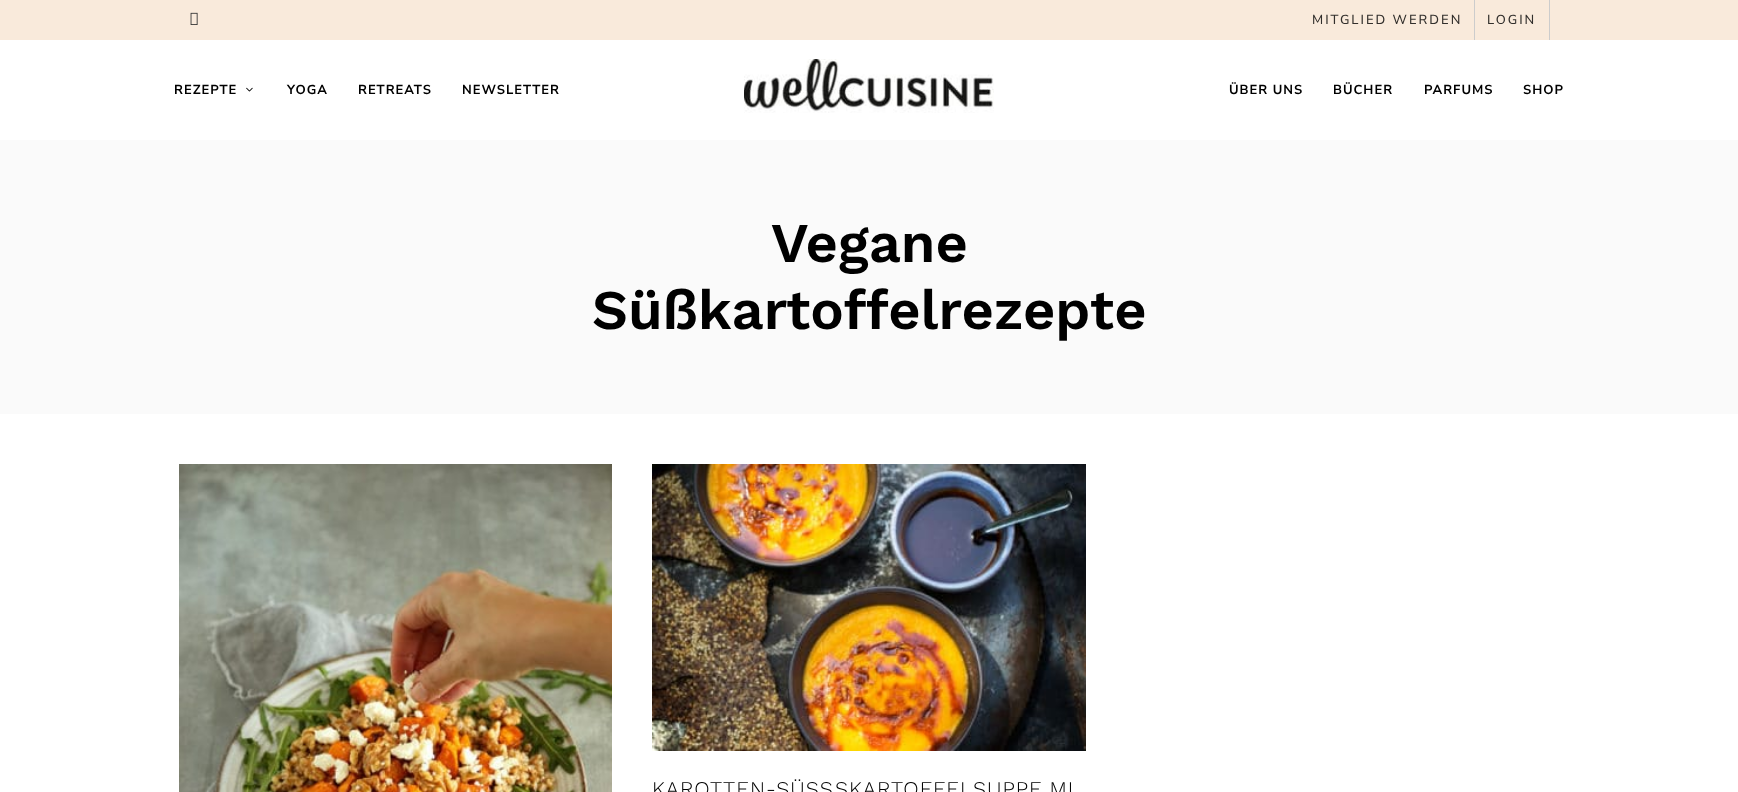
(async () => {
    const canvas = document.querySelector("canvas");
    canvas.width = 1738;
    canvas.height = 792;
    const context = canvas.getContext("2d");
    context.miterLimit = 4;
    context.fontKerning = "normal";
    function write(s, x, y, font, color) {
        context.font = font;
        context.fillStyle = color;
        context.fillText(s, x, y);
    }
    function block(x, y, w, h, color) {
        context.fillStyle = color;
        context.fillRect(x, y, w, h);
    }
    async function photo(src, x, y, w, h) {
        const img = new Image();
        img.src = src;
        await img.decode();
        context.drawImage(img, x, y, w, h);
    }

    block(0, 0, 1738, 792, "rgb(255, 255, 255)");
    block(0, 0, 1738, 40, "rgb(249, 234, 219)");
    await photo("media/1.png", 190, 12, 8, 13);
    block(1474, 0, 1, 40, "rgb(204, 204, 204)");
    context.letterSpacing = "2px";
    write("MITGLIED WERDEN", 1312, 24, "500 13px Nunito Sans", "rgb(50, 47, 44)");
    block(1549, 0, 1, 40, "rgb(204, 204, 204)");
    write("LOGIN", 1487, 24, "500 13px Nunito Sans", "rgb(50, 47, 44)");
    context.letterSpacing = "1px";
    write("REZEPTE", 174, 94, "bold 13px Nunito Sans", "rgb(0, 0, 0)");
    await photo("media/2.png", 246, 87, 7, 5);
    write("YOGA", 287, 94, "bold 13px Nunito Sans", "rgb(0, 0, 0)");
    write("RETREATS", 358, 94, "bold 13px Nunito Sans", "rgb(0, 0, 0)");
    write("NEWSLETTER", 462, 94, "bold 13px Nunito Sans", "rgb(0, 0, 0)");
    await photo("media/3.png", 744, 59, 250, 54);
    write("ÜBER UNS", 1229, 94, "bold 13px Nunito Sans", "rgb(0, 0, 0)");
    write("BÜCHER", 1333, 94, "bold 13px Nunito Sans", "rgb(0, 0, 0)");
    write("PARFUMS", 1424, 94, "bold 13px Nunito Sans", "rgb(0, 0, 0)");
    write("SHOP", 1523, 94, "bold 13px Nunito Sans", "rgb(0, 0, 0)");
    block(0, 140, 1738, 274, "rgb(250, 250, 250)");
    context.letterSpacing = "0px";
    write("Vegane", 771, 262, "600 56px Work Sans", "rgb(0, 0, 0)");
    write("Süßkartoffelrezepte", 592, 329, "600 56px Work Sans", "rgb(0, 0, 0)");
    await photo("media/4.png", 179, 464, 433, 328);
    await photo("media/5.png", 652, 464, 434, 287);
    context.letterSpacing = "1px";
    write("KAROTTEN-SÜSS", 652, 796, "300 21px Work Sans", "rgb(0, 0, 0)");
    context.wordSpacing = "-1px";
    write("SKARTOFFELSUPPE MI", 835, 796, "300 21px Work Sans", "rgb(0, 0, 0)");
})();
